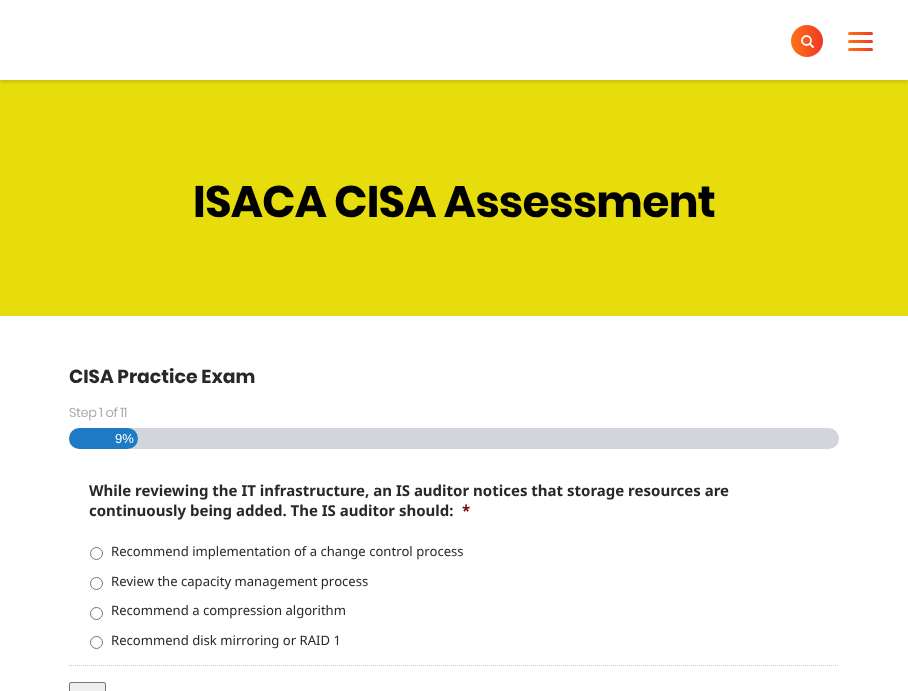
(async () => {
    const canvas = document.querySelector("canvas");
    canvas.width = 908;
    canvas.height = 691;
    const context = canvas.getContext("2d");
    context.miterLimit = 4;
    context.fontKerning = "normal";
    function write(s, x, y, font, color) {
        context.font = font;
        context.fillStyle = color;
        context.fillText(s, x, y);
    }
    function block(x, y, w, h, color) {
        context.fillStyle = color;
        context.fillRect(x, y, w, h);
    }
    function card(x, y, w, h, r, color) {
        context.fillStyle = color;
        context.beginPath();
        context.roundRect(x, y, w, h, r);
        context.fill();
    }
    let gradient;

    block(0, 0, 908, 691, "rgb(255, 255, 255)");
    block(0, 80, 908, 236, "rgb(232, 221, 12)");
    context.save();
    context.beginPath();
    context.rect(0, 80, 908, 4);
    context.clip();
    context.fillStyle = "rgba(0, 0, 0, 0.15)";
    context.filter = "blur(2px)";
    context.beginPath();
    context.rect(0, 2, 908, 80);
    context.fill();
    context.filter = "none";
    context.restore();
    gradient = context.createLinearGradient(791, 41, 823, 41);
    gradient.addColorStop(0, "rgb(255, 116, 23)");
    gradient.addColorStop(1, "rgb(238, 56, 35)");
    context.fillStyle = gradient;
    context.beginPath();
    context.arc(807, 41, 16, 0, Math.PI * 2);
    context.fill();
    context.beginPath();
    context.arc(806.5, 40.5, 4.5, 0, Math.PI * 2);
    context.strokeStyle = "rgb(255, 255, 255)";
    context.lineWidth = 1.8;
    context.stroke();
    context.beginPath();
    context.moveTo(810.5, 44.5);
    context.lineTo(813, 47);
    context.lineCap = "round";
    context.lineJoin = "round";
    context.stroke();
    gradient = context.createLinearGradient(848, 34, 873, 34);
    gradient.addColorStop(0, "rgb(255, 116, 23)");
    gradient.addColorStop(1, "rgb(238, 56, 35)");
    context.fillStyle = gradient;
    context.beginPath();
    context.roundRect(848, 32, 25, 3, 1.5);
    context.fill();
    gradient = context.createLinearGradient(848, 42, 873, 42);
    gradient.addColorStop(0, "rgb(255, 116, 23)");
    gradient.addColorStop(1, "rgb(238, 56, 35)");
    context.fillStyle = gradient;
    context.beginPath();
    context.roundRect(848, 40, 25, 3, 1.5);
    context.fill();
    gradient = context.createLinearGradient(848, 50, 873, 50);
    gradient.addColorStop(0, "rgb(255, 116, 23)");
    gradient.addColorStop(1, "rgb(238, 56, 35)");
    context.fillStyle = gradient;
    context.beginPath();
    context.roundRect(848, 48, 25, 3, 1.5);
    context.fill();
    context.letterSpacing = "-0.75px";
    write("ISACA CISA Assessment", 193, 217, "bold 44px Poppins", "rgb(0, 0, 0)");
    context.letterSpacing = "0px";
    write("CISA Practice Exam", 69, 383, "bold 18.75px Poppins", "rgb(40, 40, 40)");
    context.letterSpacing = "-0.4px";
    write("Step 1 of 11", 69, 417, "13px Poppins", "rgb(173, 173, 173)");
    card(69, 428, 770, 21, 10.5, "rgb(210, 214, 220)");
    card(69, 428, 69, 21, 10.5, "rgb(30, 122, 196)");
    context.letterSpacing = "0px";
    write("9%", 115, 443, "13px Liberation Sans", "rgb(255, 255, 255)");
    write("While reviewing the IT infrastructure, an IS auditor notices that storage resources are", 89, 496, "bold 15px Noto Sans", "rgb(40, 40, 40)");
    write("continuously being added. The IS auditor should:", 89, 516, "bold 15px Noto Sans", "rgb(40, 40, 40)");
    write("*", 462, 516, "bold 15px Noto Sans", "rgb(121, 0, 0)");
    context.beginPath();
    context.arc(96.5, 553.5, 6, 0, Math.PI * 2);
    context.strokeStyle = "rgb(118, 118, 118)";
    context.lineWidth = 1;
    context.stroke();
    write("Recommend implementation of a change control process", 111, 556, "13.1px Noto Sans", "rgb(40, 40, 40)");
    context.beginPath();
    context.arc(96.5, 583.5, 6, 0, Math.PI * 2);
    context.stroke();
    write("Review the capacity management process", 111, 586, "13.1px Noto Sans", "rgb(40, 40, 40)");
    context.beginPath();
    context.arc(96.5, 613.5, 6, 0, Math.PI * 2);
    context.stroke();
    write("Recommend a compression algorithm", 111, 615, "13.1px Noto Sans", "rgb(40, 40, 40)");
    context.beginPath();
    context.arc(96.5, 642.5, 6, 0, Math.PI * 2);
    context.stroke();
    write("Recommend disk mirroring or RAID 1", 111, 645, "13.1px Noto Sans", "rgb(40, 40, 40)");
    context.beginPath();
    context.moveTo(69, 665.5);
    context.lineTo(839, 665.5);
    context.strokeStyle = "rgb(204, 204, 204)";
    context.lineCap = "butt";
    context.lineJoin = "miter";
    context.setLineDash([1, 1]);
    context.stroke();
    context.fillStyle = "rgb(239, 239, 239)";
    context.beginPath();
    context.roundRect(69.5, 682.5, 36, 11, 1.5);
    context.fill();
    context.strokeStyle = "rgb(118, 118, 118)";
    context.setLineDash([]);
    context.stroke();
})();
